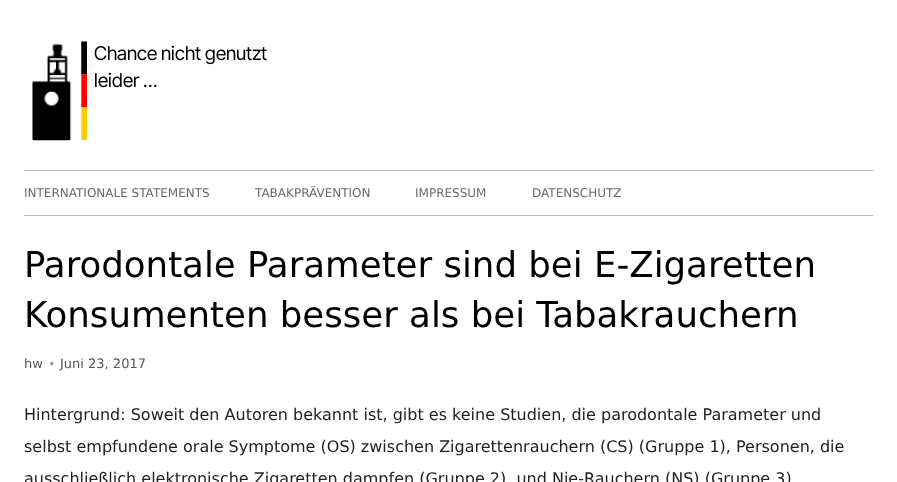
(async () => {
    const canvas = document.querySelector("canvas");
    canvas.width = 897;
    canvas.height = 482;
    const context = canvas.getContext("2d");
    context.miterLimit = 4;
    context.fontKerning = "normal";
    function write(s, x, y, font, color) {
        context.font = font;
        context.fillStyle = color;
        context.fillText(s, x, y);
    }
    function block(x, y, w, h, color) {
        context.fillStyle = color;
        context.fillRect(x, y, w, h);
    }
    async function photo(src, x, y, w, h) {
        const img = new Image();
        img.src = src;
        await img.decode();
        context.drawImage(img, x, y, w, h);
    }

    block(0, 0, 897, 482, "rgb(255, 255, 255)");
    await photo("media/1.png", 32, 41, 235, 100);
    block(24, 170, 849, 1, "rgb(187, 187, 187)");
    block(24, 215, 849, 1, "rgb(187, 187, 187)");
    write("INTERNATIONALE STATEMENTS", 24, 197, "12px DejaVu Sans", "rgb(106, 106, 106)");
    write("TABAKPRÄVENTION", 255, 197, "12px DejaVu Sans", "rgb(106, 106, 106)");
    write("IMPRESSUM", 415, 197, "12px DejaVu Sans", "rgb(106, 106, 106)");
    write("DATENSCHUTZ", 532, 197, "12px DejaVu Sans", "rgb(106, 106, 106)");
    write("Parodontale Parameter sind bei E-Zigaretten", 24, 277, "35.6px DejaVu Sans", "rgb(0, 0, 0)");
    write("Konsumenten besser als bei Tabakrauchern", 24, 327, "35.6px DejaVu Sans", "rgb(0, 0, 0)");
    write("hw", 24, 368, "13px DejaVu Sans", "rgb(85, 85, 85)");
    await photo("media/2.png", 50, 361, 4, 5);
    write("Juni 23, 2017", 60, 368, "13px DejaVu Sans", "rgb(85, 85, 85)");
    write("Hintergrund: Soweit den Autoren bekannt ist, gibt es keine Studien, die parodontale Parameter und", 24, 420, "16px DejaVu Sans", "rgb(34, 34, 34)");
    write("selbst empfundene orale Symptome (OS) zwischen Zigarettenrauchern (CS) (Gruppe 1), Personen, die", 24, 452, "16px DejaVu Sans", "rgb(34, 34, 34)");
    write("ausschließlich elektronische Zigaretten dampfen (Gruppe 2), und Nie-Rauchern (NS) (Gruppe 3)", 24, 484, "16px DejaVu Sans", "rgb(34, 34, 34)");
})();
